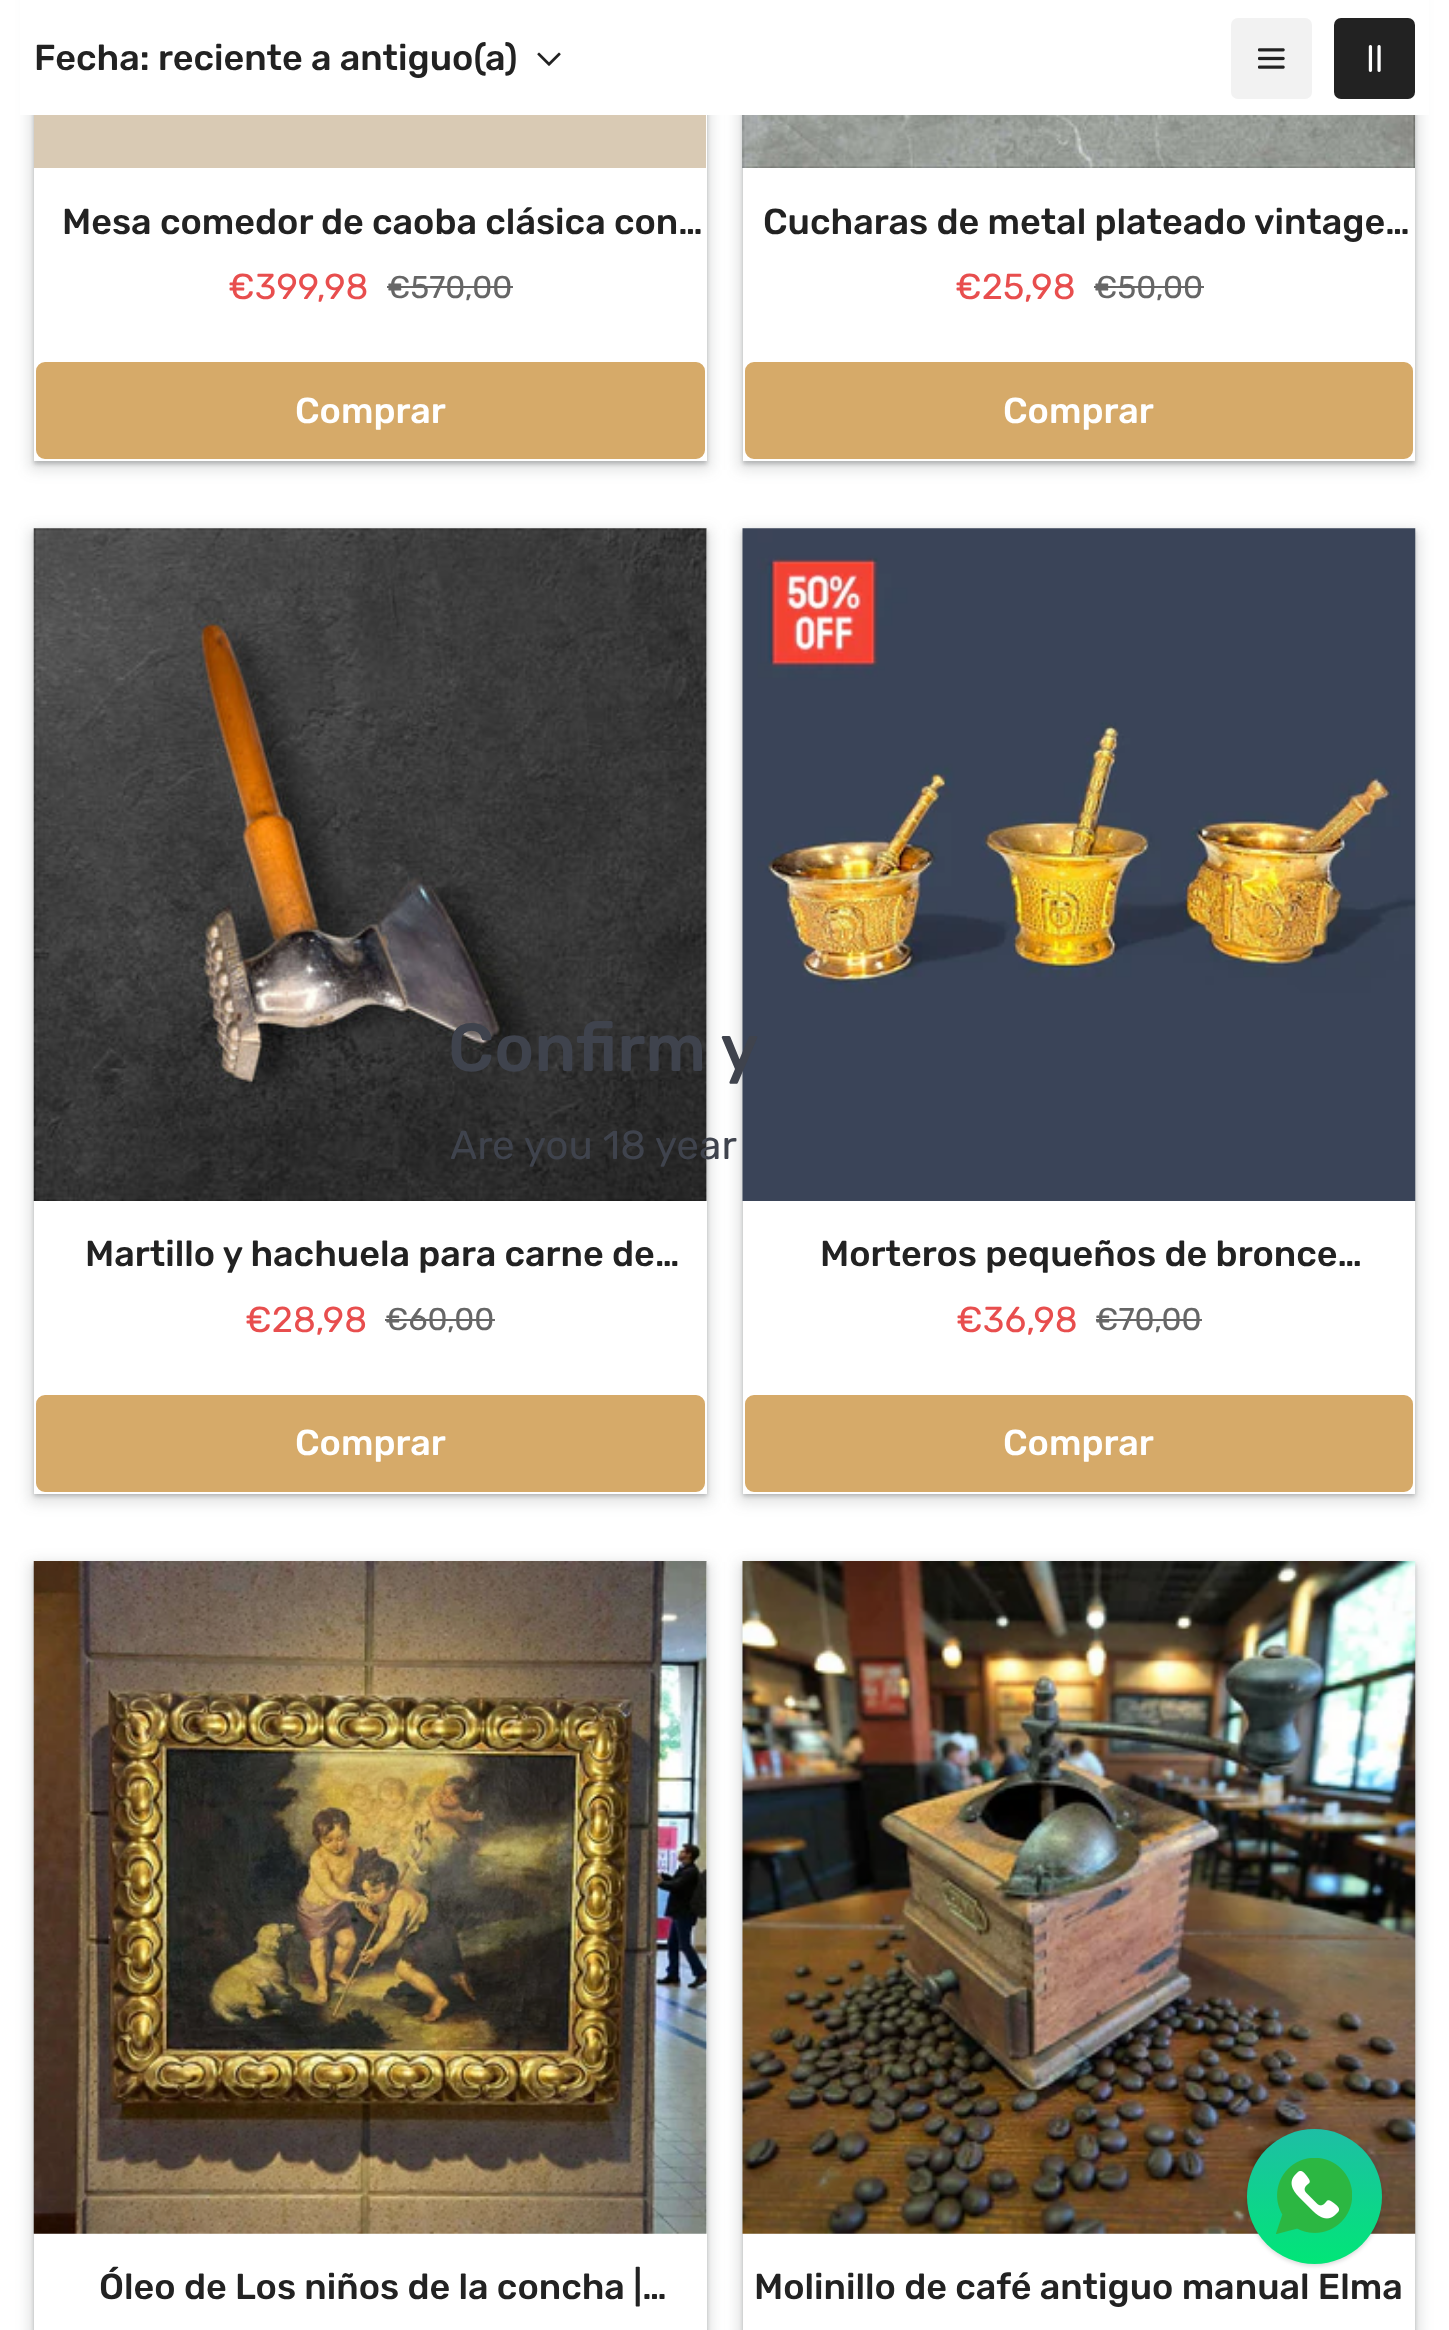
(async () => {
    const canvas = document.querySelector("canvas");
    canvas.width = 1449;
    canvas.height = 2330;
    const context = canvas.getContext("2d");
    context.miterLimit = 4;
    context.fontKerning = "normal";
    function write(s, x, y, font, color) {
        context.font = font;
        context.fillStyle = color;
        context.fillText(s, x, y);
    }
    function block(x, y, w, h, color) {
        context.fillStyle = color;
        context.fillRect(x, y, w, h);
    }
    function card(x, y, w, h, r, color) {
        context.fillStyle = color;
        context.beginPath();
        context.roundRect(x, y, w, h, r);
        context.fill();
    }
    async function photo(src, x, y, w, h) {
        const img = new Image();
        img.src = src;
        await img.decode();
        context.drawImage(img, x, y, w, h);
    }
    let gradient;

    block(0, 0, 1449, 2330, "rgb(255, 255, 255)");
    context.save();
    context.beginPath();
    context.moveTo(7, 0);
    context.lineTo(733, 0);
    context.lineTo(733, 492);
    context.lineTo(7, 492);
    context.closePath();
    context.moveTo(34, -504);
    context.lineTo(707, -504);
    context.lineTo(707, 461);
    context.lineTo(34, 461);
    context.closePath();
    context.clip("evenodd");
    context.fillStyle = "rgba(60, 64, 67, 0.15)";
    context.filter = "blur(7px)";
    context.beginPath();
    context.rect(29, -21, 682, 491);
    context.fill();
    context.filter = "none";
    context.restore();
    context.save();
    context.beginPath();
    context.moveTo(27, 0);
    context.lineTo(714, 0);
    context.lineTo(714, 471);
    context.lineTo(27, 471);
    context.closePath();
    context.moveTo(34, -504);
    context.lineTo(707, -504);
    context.lineTo(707, 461);
    context.lineTo(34, 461);
    context.closePath();
    context.clip("evenodd");
    context.fillStyle = "rgba(60, 64, 67, 0.3)";
    context.filter = "blur(2px)";
    context.beginPath();
    context.rect(34, -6, 673, 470);
    context.fill();
    context.filter = "none";
    context.restore();
    context.save();
    context.beginPath();
    context.moveTo(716, 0);
    context.lineTo(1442, 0);
    context.lineTo(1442, 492);
    context.lineTo(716, 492);
    context.closePath();
    context.moveTo(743, -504);
    context.lineTo(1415, -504);
    context.lineTo(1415, 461);
    context.lineTo(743, 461);
    context.closePath();
    context.clip("evenodd");
    context.fillStyle = "rgba(60, 64, 67, 0.15)";
    context.filter = "blur(7px)";
    context.beginPath();
    context.rect(738, -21, 682, 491);
    context.fill();
    context.filter = "none";
    context.restore();
    context.save();
    context.beginPath();
    context.moveTo(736, 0);
    context.lineTo(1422, 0);
    context.lineTo(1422, 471);
    context.lineTo(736, 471);
    context.closePath();
    context.moveTo(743, -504);
    context.lineTo(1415, -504);
    context.lineTo(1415, 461);
    context.lineTo(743, 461);
    context.closePath();
    context.clip("evenodd");
    context.fillStyle = "rgba(60, 64, 67, 0.3)";
    context.filter = "blur(2px)";
    context.beginPath();
    context.rect(743, -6, 672, 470);
    context.fill();
    context.filter = "none";
    context.restore();
    block(20, 0, 1409, 115, "rgb(255, 255, 255)");
    write("Fecha: reciente a antiguo(a)", 34, 70, "500 36px Rubik", "rgb(34, 34, 34)");
    await photo("media/1.png", 537, 52, 24, 14);
    card(1231, 18, 81, 81, 7, "rgb(242, 242, 242)");
    await photo("media/2.png", 1258, 48, 27, 21);
    card(1334, 18, 81, 81, 7, "rgb(34, 34, 34)");
    await photo("media/3.png", 1368, 45, 13, 27);
    await photo("media/4.png", 34, 115, 672, 53);
    write("Mesa comedor de caoba clásica con…", 62, 234, "500 36px Rubik", "rgb(34, 34, 34)");
    write("€399,98", 228, 299, "36px Rubik", "rgb(232, 78, 78)");
    write("€570,00", 387, 298, "31.5px Rubik", "rgb(102, 102, 102)");
    block(387, 286, 126, 2, "rgb(102, 102, 102)");
    context.fillStyle = "rgb(214, 170, 105)";
    context.beginPath();
    context.roundRect(35, 361, 671, 99, 10);
    context.fill();
    context.strokeStyle = "rgb(255, 255, 255)";
    context.lineWidth = 2;
    context.stroke();
    write("Comprar", 295, 423, "500 36px Rubik", "rgb(255, 255, 255)");
    await photo("media/5.png", 742, 115, 673, 53);
    write("Cucharas de metal plateado vintage…", 763, 234, "500 36px Rubik", "rgb(34, 34, 34)");
    write("€25,98", 955, 299, "36px Rubik", "rgb(232, 78, 78)");
    write("€50,00", 1094, 298, "31.5px Rubik", "rgb(102, 102, 102)");
    block(1094, 286, 110, 2, "rgb(102, 102, 102)");
    context.fillStyle = "rgb(214, 170, 105)";
    context.beginPath();
    context.roundRect(744, 361, 670, 99, 10);
    context.fill();
    context.stroke();
    write("Comprar", 1003, 423, "500 36px Rubik", "rgb(255, 255, 255)");
    context.save();
    context.beginPath();
    context.moveTo(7, 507);
    context.lineTo(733, 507);
    context.lineTo(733, 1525);
    context.lineTo(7, 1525);
    context.closePath();
    context.moveTo(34, 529);
    context.lineTo(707, 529);
    context.lineTo(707, 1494);
    context.lineTo(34, 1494);
    context.closePath();
    context.clip("evenodd");
    context.fillStyle = "rgba(60, 64, 67, 0.15)";
    context.filter = "blur(7px)";
    context.beginPath();
    context.rect(29, 529, 682, 974);
    context.fill();
    context.filter = "none";
    context.restore();
    context.save();
    context.beginPath();
    context.moveTo(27, 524);
    context.lineTo(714, 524);
    context.lineTo(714, 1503);
    context.lineTo(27, 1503);
    context.closePath();
    context.moveTo(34, 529);
    context.lineTo(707, 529);
    context.lineTo(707, 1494);
    context.lineTo(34, 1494);
    context.closePath();
    context.clip("evenodd");
    context.fillStyle = "rgba(60, 64, 67, 0.3)";
    context.filter = "blur(2px)";
    context.beginPath();
    context.rect(34, 531, 673, 965);
    context.fill();
    context.filter = "none";
    context.restore();
    await photo("media/6.png", 33, 528, 674, 673);
    write("Martillo y hachuela para carne de…", 85, 1266, "500 36px Rubik", "rgb(34, 34, 34)");
    write("€28,98", 245, 1332, "36px Rubik", "rgb(232, 78, 78)");
    write("€60,00", 385, 1330, "31.5px Rubik", "rgb(102, 102, 102)");
    block(385, 1319, 110, 2, "rgb(102, 102, 102)");
    context.fillStyle = "rgb(214, 170, 105)";
    context.beginPath();
    context.roundRect(35, 1394, 671, 99, 10);
    context.fill();
    context.stroke();
    write("Comprar", 295, 1455, "500 36px Rubik", "rgb(255, 255, 255)");
    context.save();
    context.beginPath();
    context.moveTo(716, 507);
    context.lineTo(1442, 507);
    context.lineTo(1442, 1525);
    context.lineTo(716, 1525);
    context.closePath();
    context.moveTo(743, 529);
    context.lineTo(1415, 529);
    context.lineTo(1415, 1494);
    context.lineTo(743, 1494);
    context.closePath();
    context.clip("evenodd");
    context.fillStyle = "rgba(60, 64, 67, 0.15)";
    context.filter = "blur(7px)";
    context.beginPath();
    context.rect(738, 529, 682, 974);
    context.fill();
    context.filter = "none";
    context.restore();
    context.save();
    context.beginPath();
    context.moveTo(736, 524);
    context.lineTo(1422, 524);
    context.lineTo(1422, 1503);
    context.lineTo(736, 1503);
    context.closePath();
    context.moveTo(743, 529);
    context.lineTo(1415, 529);
    context.lineTo(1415, 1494);
    context.lineTo(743, 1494);
    context.closePath();
    context.clip("evenodd");
    context.fillStyle = "rgba(60, 64, 67, 0.3)";
    context.filter = "blur(2px)";
    context.beginPath();
    context.rect(743, 531, 672, 965);
    context.fill();
    context.filter = "none";
    context.restore();
    await photo("media/7.png", 742, 528, 674, 673);
    write("Morteros pequeños de bronce…", 820, 1266, "500 36px Rubik", "rgb(34, 34, 34)");
    write("€36,98", 956, 1332, "36px Rubik", "rgb(232, 78, 78)");
    write("€70,00", 1095, 1330, "31.5px Rubik", "rgb(102, 102, 102)");
    block(1096, 1319, 106, 2, "rgb(102, 102, 102)");
    context.fillStyle = "rgb(214, 170, 105)";
    context.beginPath();
    context.roundRect(744, 1394, 670, 99, 10);
    context.fill();
    context.stroke();
    write("Comprar", 1003, 1455, "500 36px Rubik", "rgb(255, 255, 255)");
    context.save();
    context.beginPath();
    context.moveTo(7, 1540);
    context.lineTo(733, 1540);
    context.lineTo(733, 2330);
    context.lineTo(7, 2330);
    context.closePath();
    context.moveTo(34, 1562);
    context.lineTo(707, 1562);
    context.lineTo(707, 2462);
    context.lineTo(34, 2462);
    context.closePath();
    context.clip("evenodd");
    context.fillStyle = "rgba(60, 64, 67, 0.15)";
    context.filter = "blur(7px)";
    context.beginPath();
    context.rect(29, 1562, 682, 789);
    context.fill();
    context.filter = "none";
    context.restore();
    context.save();
    context.beginPath();
    context.moveTo(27, 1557);
    context.lineTo(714, 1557);
    context.lineTo(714, 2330);
    context.lineTo(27, 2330);
    context.closePath();
    context.moveTo(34, 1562);
    context.lineTo(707, 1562);
    context.lineTo(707, 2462);
    context.lineTo(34, 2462);
    context.closePath();
    context.clip("evenodd");
    context.fillStyle = "rgba(60, 64, 67, 0.3)";
    context.filter = "blur(2px)";
    context.beginPath();
    context.rect(34, 1564, 673, 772);
    context.fill();
    context.filter = "none";
    context.restore();
    await photo("media/8.png", 33, 1561, 674, 673);
    write("Óleo de Los niños de la concha |…", 99, 2299, "500 36px Rubik", "rgb(34, 34, 34)");
    context.save();
    context.beginPath();
    context.moveTo(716, 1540);
    context.lineTo(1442, 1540);
    context.lineTo(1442, 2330);
    context.lineTo(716, 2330);
    context.closePath();
    context.moveTo(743, 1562);
    context.lineTo(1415, 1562);
    context.lineTo(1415, 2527);
    context.lineTo(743, 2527);
    context.closePath();
    context.clip("evenodd");
    context.fillStyle = "rgba(60, 64, 67, 0.15)";
    context.filter = "blur(7px)";
    context.beginPath();
    context.rect(738, 1562, 682, 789);
    context.fill();
    context.filter = "none";
    context.restore();
    context.save();
    context.beginPath();
    context.moveTo(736, 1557);
    context.lineTo(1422, 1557);
    context.lineTo(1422, 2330);
    context.lineTo(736, 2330);
    context.closePath();
    context.moveTo(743, 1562);
    context.lineTo(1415, 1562);
    context.lineTo(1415, 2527);
    context.lineTo(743, 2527);
    context.closePath();
    context.clip("evenodd");
    context.fillStyle = "rgba(60, 64, 67, 0.3)";
    context.filter = "blur(2px)";
    context.beginPath();
    context.rect(743, 1564, 672, 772);
    context.fill();
    context.filter = "none";
    context.restore();
    await photo("media/9.png", 742, 1561, 674, 673);
    write("Molinillo de café antiguo manual Elma", 754, 2299, "500 36px Rubik", "rgb(34, 34, 34)");
    write("Confirm y", 448, 1071, "500 67.5px Rubik", "rgb(63, 67, 77)");
    write("Are you 18 year", 450, 1159, "40.5px Rubik", "rgb(63, 67, 77)");
    context.fillStyle = "rgba(0, 0, 0, 0.15)";
    context.filter = "blur(2px)";
    context.beginPath();
    context.roundRect(1247, 2131, 135, 135, 67.5);
    context.fill();
    context.filter = "none";
    gradient = context.createLinearGradient(1314, 2129, 1314, 2264);
    gradient.addColorStop(0, "rgb(30, 190, 165)");
    gradient.addColorStop(1, "rgb(1, 230, 119)");
    context.fillStyle = gradient;
    context.beginPath();
    context.arc(1314.5, 2196.5, 67.5, 0, Math.PI * 2);
    context.fill();
    await photo("media/10.png", 1276, 2158, 76, 76);
})();
